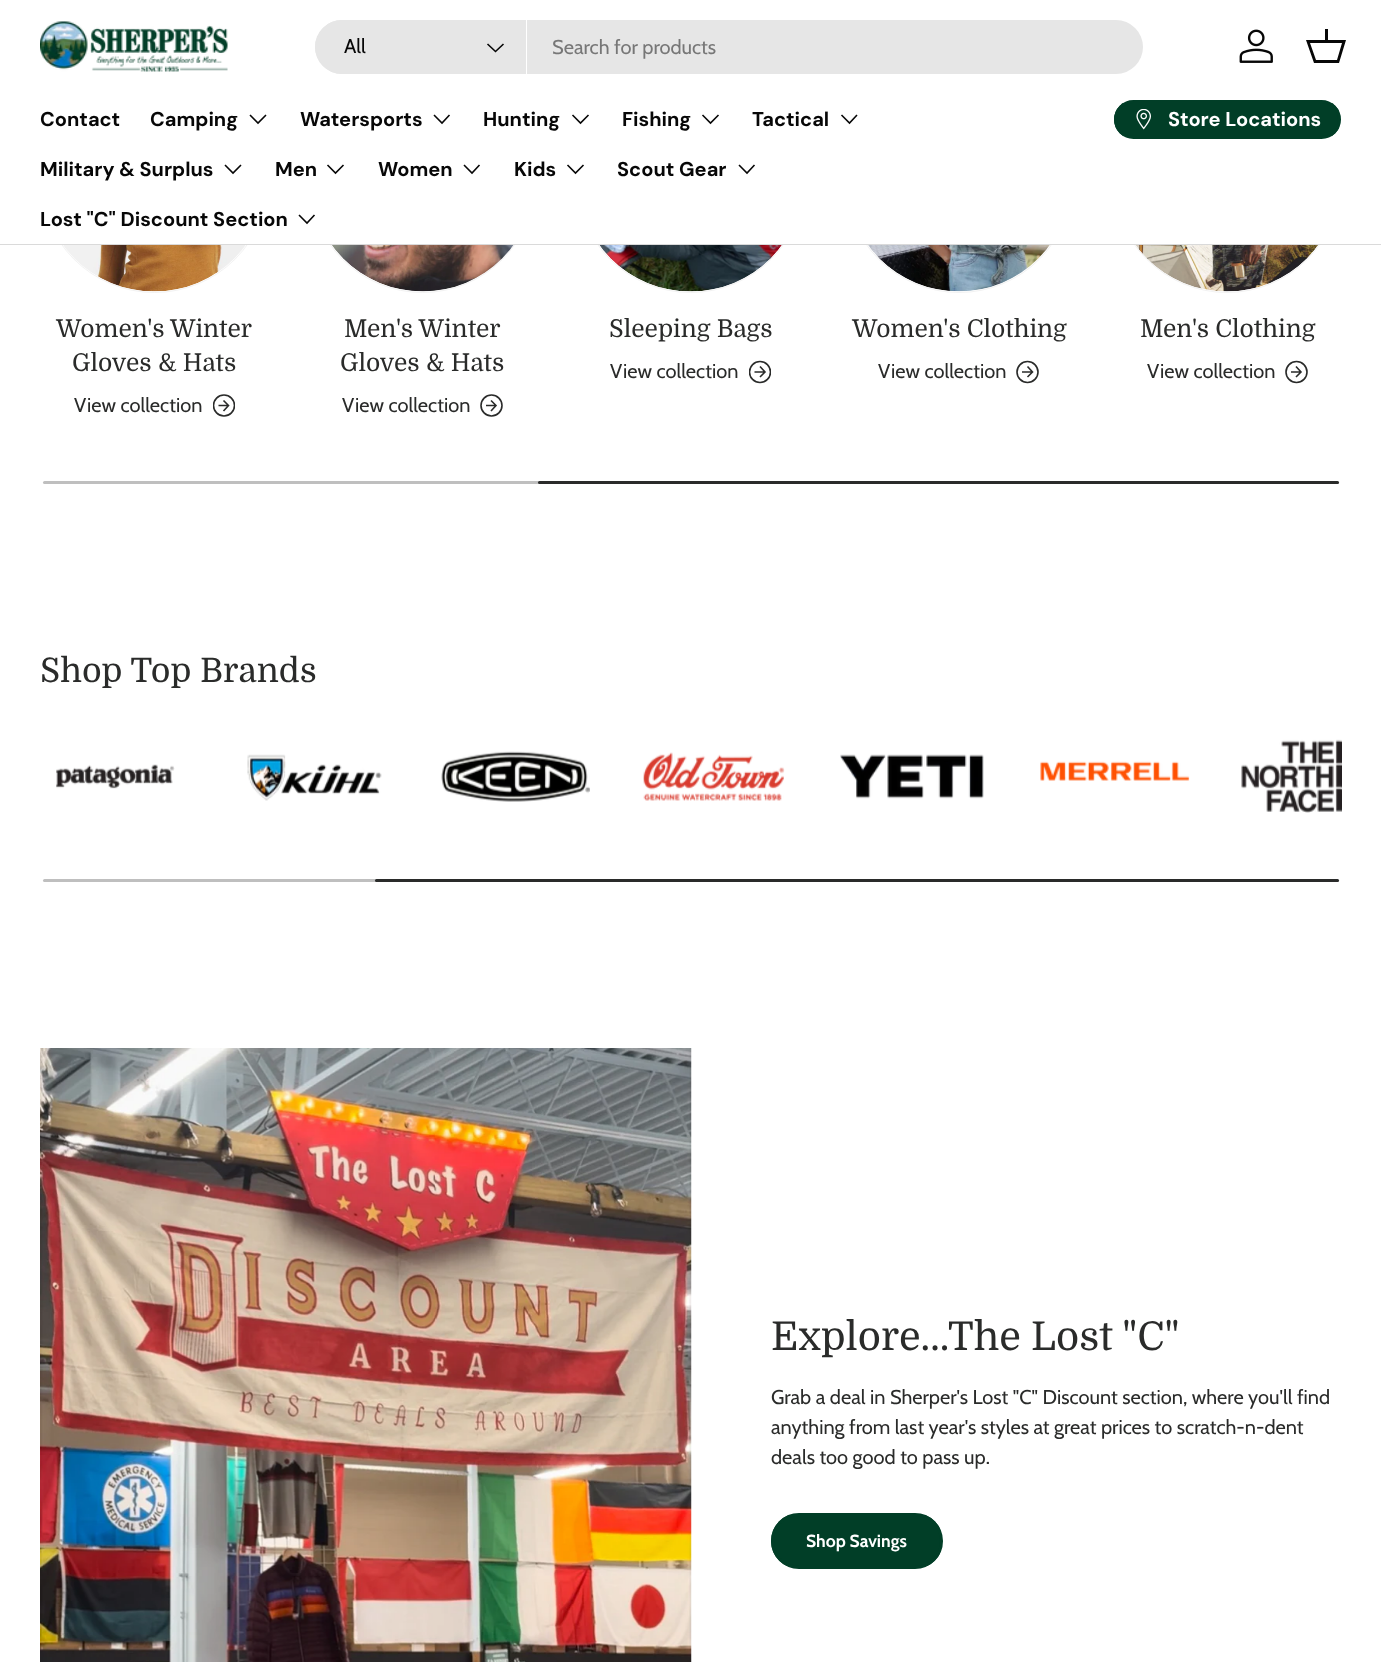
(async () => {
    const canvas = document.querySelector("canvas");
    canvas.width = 1381;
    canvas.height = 1662;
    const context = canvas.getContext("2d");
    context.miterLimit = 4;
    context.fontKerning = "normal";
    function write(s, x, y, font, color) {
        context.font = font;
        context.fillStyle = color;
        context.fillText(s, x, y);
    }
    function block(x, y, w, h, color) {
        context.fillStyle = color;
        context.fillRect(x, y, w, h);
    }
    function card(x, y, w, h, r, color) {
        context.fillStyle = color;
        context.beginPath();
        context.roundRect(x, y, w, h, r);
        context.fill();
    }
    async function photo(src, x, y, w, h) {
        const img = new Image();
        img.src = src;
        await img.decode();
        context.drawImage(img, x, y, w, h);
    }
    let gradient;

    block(0, 0, 1381, 1662, "rgb(255, 255, 255)");
    context.beginPath();
    context.arc(154.5, 178.5, 114, 0, Math.PI * 2);
    context.strokeStyle = "rgb(242, 242, 242)";
    context.stroke();
    card(41, 65, 227, 226, 113, "rgb(249, 249, 249)");
    context.beginPath();
    context.roundRect(309.5, 64.5, 226, 228, 113);
    context.stroke();
    context.beginPath();
    context.arc(690.5, 178.5, 114, 0, Math.PI * 2);
    context.stroke();
    context.beginPath();
    context.arc(691, 178, 113, 0, Math.PI * 2);
    context.fill();
    context.beginPath();
    context.roundRect(845.5, 64.5, 227, 228, 113.5);
    context.stroke();
    card(846, 65, 225, 226, 112.5, "rgb(249, 249, 249)");
    context.beginPath();
    context.roundRect(1113.5, 64.5, 227, 228, 113.5);
    context.stroke();
    block(40, 64, 1301, 180, "rgb(255, 255, 255)");
    block(0, 244, 1381, 1, "rgb(218, 218, 218)");
    await photo("media/1.png", 40, 21, 188, 51);
    card(315, 20, 828, 54, 27, "rgb(230, 230, 230)");
    context.beginPath();
    context.roundRect(315, 20, 213, 54, [27, 0, 0, 27]);
    context.fill();
    block(526, 20, 1, 54, "rgb(255, 255, 255)");
    write("All", 344, 53, "20px Cabin", "rgb(7, 7, 7)");
    context.beginPath();
    context.moveTo(503.5, 44);
    context.lineTo(495.5, 51.5);
    context.lineTo(487.5, 44);
    context.strokeStyle = "rgb(7, 7, 7)";
    context.lineWidth = 1.6;
    context.stroke();
    write("Search for products", 552, 54, "20px Cabin", "rgb(119, 119, 119)");
    await photo("media/2.png", 1239, 29, 34, 34);
    context.fillStyle = "rgb(7, 7, 7)";
    context.beginPath();
    context.moveTo(1325, 40);
    context.lineTo(1325, 29);
    context.lineTo(1328, 29);
    context.lineTo(1328, 40);
    context.lineTo(1346, 40);
    context.lineTo(1339, 63);
    context.lineTo(1314, 63);
    context.lineTo(1306, 40);
    context.closePath();
    context.moveTo(1310, 43);
    context.lineTo(1316, 60);
    context.lineTo(1337, 60);
    context.lineTo(1342, 43);
    context.closePath();
    context.fill();
    write("Contact", 40, 126, "bold 20px DM Sans", "rgb(7, 7, 7)");
    write("Camping", 150, 126, "bold 20px DM Sans", "rgb(7, 7, 7)");
    context.beginPath();
    context.moveTo(266, 115);
    context.lineTo(258, 123);
    context.lineTo(250, 115);
    context.stroke();
    write("Watersports", 300, 126, "bold 20px DM Sans", "rgb(7, 7, 7)");
    context.beginPath();
    context.moveTo(449.5, 115);
    context.lineTo(442, 123);
    context.lineTo(434, 115);
    context.stroke();
    write("Hunting", 483, 126, "bold 20px DM Sans", "rgb(7, 7, 7)");
    context.beginPath();
    context.moveTo(588.5, 115);
    context.lineTo(580.5, 123);
    context.lineTo(572.5, 115);
    context.stroke();
    write("Fishing", 622, 126, "bold 20px DM Sans", "rgb(7, 7, 7)");
    context.beginPath();
    context.moveTo(718.5, 115);
    context.lineTo(710.5, 123);
    context.lineTo(702.5, 115);
    context.stroke();
    write("Tactical", 752, 126, "bold 20px DM Sans", "rgb(7, 7, 7)");
    context.beginPath();
    context.moveTo(857, 115);
    context.lineTo(849.5, 123);
    context.lineTo(841.5, 115);
    context.stroke();
    write("Military & Surplus", 40, 176, "bold 20px DM Sans", "rgb(7, 7, 7)");
    context.beginPath();
    context.moveTo(241, 165);
    context.lineTo(233, 173);
    context.lineTo(225, 165);
    context.stroke();
    write("Men", 275, 176, "bold 20px DM Sans", "rgb(7, 7, 7)");
    context.beginPath();
    context.moveTo(343.5, 165);
    context.lineTo(335.5, 173);
    context.lineTo(327.5, 165);
    context.stroke();
    write("Women", 378, 176, "bold 20px DM Sans", "rgb(7, 7, 7)");
    context.beginPath();
    context.moveTo(479.5, 165);
    context.lineTo(472, 173);
    context.lineTo(464, 165);
    context.stroke();
    write("Kids", 514, 176, "bold 20px DM Sans", "rgb(7, 7, 7)");
    context.beginPath();
    context.moveTo(583.5, 165);
    context.lineTo(575.5, 173);
    context.lineTo(567.5, 165);
    context.stroke();
    write("Scout Gear", 617, 176, "bold 20px DM Sans", "rgb(7, 7, 7)");
    context.beginPath();
    context.moveTo(754.5, 165);
    context.lineTo(747, 173);
    context.lineTo(739, 165);
    context.stroke();
    write("Lost \"C\" Discount Section", 40, 226, "bold 20px DM Sans", "rgb(7, 7, 7)");
    context.beginPath();
    context.moveTo(314.5, 215);
    context.lineTo(307, 223);
    context.lineTo(299, 215);
    context.stroke();
    context.save();
    context.beginPath();
    context.roundRect(1114, 100, 227, 39, 19.5);
    context.clip();
    gradient = context.createLinearGradient(687, 40, 1323, 199);
    gradient.addColorStop(0.6, "rgb(44, 102, 79)");
    gradient.addColorStop(0.6, "rgb(1, 62, 39)");
    gradient.addColorStop(1, "rgb(1, 62, 39)");
    context.fillStyle = gradient;
    context.fillRect(1114, 103, 225, 33);
    context.restore();
    context.beginPath();
    context.roundRect(1115.5, 101.5, 224, 36, 18);
    context.strokeStyle = "rgb(1, 62, 39)";
    context.lineWidth = 3;
    context.stroke();
    await photo("media/3.png", 1136, 109, 15, 21);
    write("Store Locations", 1168, 126, "bold 20px DM Sans", "rgb(255, 255, 255)");
    await photo("media/4.png", 63, 245, 183, 47);
    write("Women's Winter", 56, 337, "24.5px Domine", "rgb(42, 43, 42)");
    write("Gloves & Hats", 72, 371, "24.5px Domine", "rgb(42, 43, 42)");
    write("View collection", 74, 412, "20px Cabin", "rgb(42, 43, 42)");
    context.beginPath();
    context.moveTo(218.5, 405.5);
    context.lineTo(228, 405.5);
    context.moveTo(223.5, 400.5);
    context.lineTo(228.5, 405.5);
    context.lineTo(223.5, 411);
    context.strokeStyle = "rgb(42, 43, 42)";
    context.lineWidth = 1.6;
    context.stroke();
    context.save();
    context.beginPath();
    context.rect(213, 394, 22, 24);
    context.clip();
    context.beginPath();
    context.arc(224, 405.5, 10.5, 0, Math.PI * 2);
    context.stroke();
    context.restore();
    await photo("media/5.png", 332, 245, 182, 47);
    write("Men's Winter", 344, 337, "24.5px Domine", "rgb(42, 43, 42)");
    write("Gloves & Hats", 340, 371, "24.5px Domine", "rgb(42, 43, 42)");
    write("View collection", 342, 412, "20px Cabin", "rgb(42, 43, 42)");
    context.beginPath();
    context.moveTo(486, 405.5);
    context.lineTo(495.5, 405.5);
    context.moveTo(491, 400.5);
    context.lineTo(496, 405.5);
    context.lineTo(491, 411);
    context.stroke();
    context.beginPath();
    context.arc(491.5, 405.5, 10.5, 0, Math.PI * 2);
    context.stroke();
    await photo("media/6.png", 599, 245, 183, 47);
    write("Sleeping Bags", 609, 337, "24.5px Domine", "rgb(42, 43, 42)");
    write("View collection", 610, 378, "20px Cabin", "rgb(42, 43, 42)");
    context.beginPath();
    context.moveTo(754.5, 372);
    context.lineTo(764.5, 372);
    context.moveTo(760, 366.5);
    context.lineTo(765, 372);
    context.lineTo(760, 377);
    context.stroke();
    context.save();
    context.beginPath();
    context.rect(749, 360, 22, 24);
    context.clip();
    context.beginPath();
    context.arc(760, 372, 10.5, 0, Math.PI * 2);
    context.stroke();
    context.restore();
    await photo("media/7.png", 868, 245, 182, 47);
    write("Women's Clothing", 852, 337, "24.5px Domine", "rgb(42, 43, 42)");
    write("View collection", 878, 378, "20px Cabin", "rgb(42, 43, 42)");
    context.beginPath();
    context.moveTo(1022, 372);
    context.lineTo(1032, 372);
    context.moveTo(1027.5, 366.5);
    context.lineTo(1032.5, 372);
    context.lineTo(1027.5, 377);
    context.stroke();
    context.beginPath();
    context.arc(1027.5, 372, 10.5, 0, Math.PI * 2);
    context.stroke();
    await photo("media/8.png", 1136, 245, 182, 47);
    write("Men's Clothing", 1140, 337, "24.5px Domine", "rgb(42, 43, 42)");
    write("View collection", 1147, 378, "20px Cabin", "rgb(42, 43, 42)");
    context.beginPath();
    context.moveTo(1291, 372);
    context.lineTo(1300.5, 372);
    context.moveTo(1296, 366.5);
    context.lineTo(1301, 372);
    context.lineTo(1296, 377);
    context.stroke();
    context.beginPath();
    context.arc(1296.5, 372, 10.5, 0, Math.PI * 2);
    context.stroke();
    card(43, 481, 1296, 3, 1.5, "rgb(191, 191, 191)");
    card(538, 481, 801, 3, 1.5, "rgb(42, 43, 42)");
    write("Shop Top Brands", 40, 682, "33.75px Domine", "rgb(42, 43, 42)");
    await photo("media/9.png", 56, 764, 119, 25);
    await photo("media/10.png", 247, 754, 135, 47);
    await photo("media/11.png", 441, 751, 149, 51);
    await photo("media/12.png", 643, 752, 142, 49);
    await photo("media/13.png", 840, 754, 144, 45);
    await photo("media/14.png", 1040, 761, 150, 20);
    await photo("media/15.png", 1241, 739, 101, 74);
    card(43, 879, 1296, 3, 1.5, "rgb(191, 191, 191)");
    card(375, 879, 964, 3, 1.5, "rgb(42, 43, 42)");
    await photo("media/16.png", 40, 1048, 652, 614);
    write("Explore...The Lost \"C\"", 771, 1350, "39.75px Domine", "rgb(42, 43, 42)");
    write("Grab a deal in Sherper's Lost \"C\" Discount section, where you'll find", 771, 1404, "20px Cabin", "rgb(42, 43, 42)");
    write("anything from last year's styles at great prices to scratch-n-dent", 771, 1434, "20px Cabin", "rgb(42, 43, 42)");
    write("deals too good to pass up.", 771, 1464, "20px Cabin", "rgb(42, 43, 42)");
    context.save();
    context.beginPath();
    context.roundRect(771, 1513, 172, 56, 28);
    context.clip();
    gradient = context.createLinearGradient(450, 1481, 931, 1601);
    gradient.addColorStop(0.6, "rgb(44, 102, 79)");
    gradient.addColorStop(0.6, "rgb(1, 62, 39)");
    gradient.addColorStop(1, "rgb(1, 62, 39)");
    context.fillStyle = gradient;
    context.fillRect(771, 1515, 169, 51);
    context.restore();
    context.beginPath();
    context.roundRect(772.5, 1514.5, 169, 53, 26.5);
    context.strokeStyle = "rgb(1, 62, 39)";
    context.lineWidth = 3;
    context.stroke();
    write("Shop Savings", 806, 1547, "bold 17.5px Cabin", "rgb(255, 255, 255)");
})();
